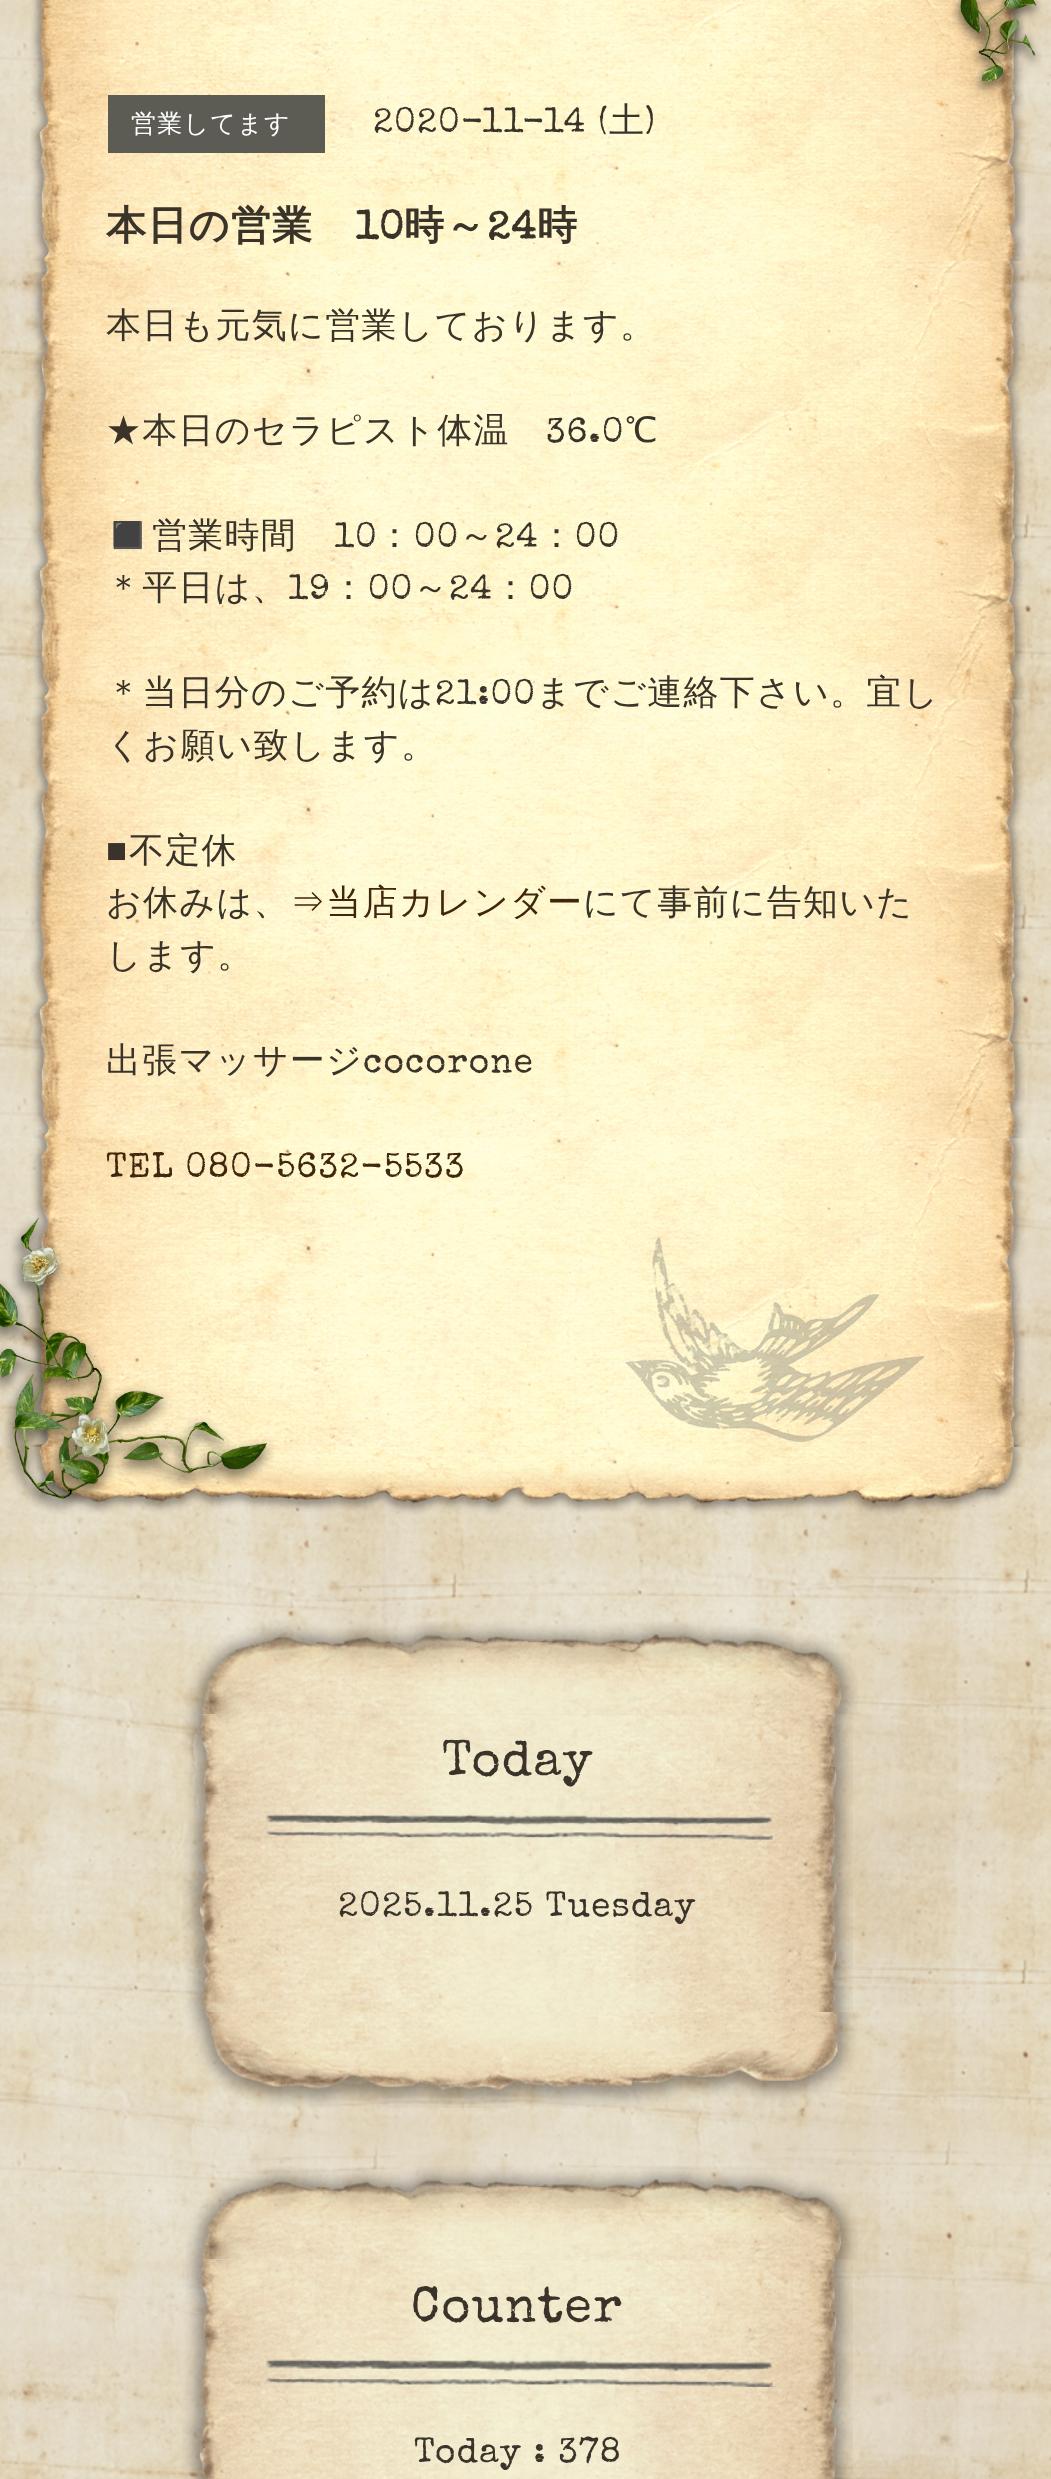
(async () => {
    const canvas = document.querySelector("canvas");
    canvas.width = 1051;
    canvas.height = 2479;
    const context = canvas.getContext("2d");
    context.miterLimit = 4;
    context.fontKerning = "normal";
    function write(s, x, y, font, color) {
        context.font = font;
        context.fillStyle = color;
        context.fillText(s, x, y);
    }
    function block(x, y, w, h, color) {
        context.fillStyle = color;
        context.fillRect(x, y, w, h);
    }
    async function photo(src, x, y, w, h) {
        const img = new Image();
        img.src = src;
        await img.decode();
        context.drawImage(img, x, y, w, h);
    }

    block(0, 0, 1051, 2479, "rgb(255, 255, 255)");
    await photo("media/1.png", 0, 0, 1051, 2479);
    await photo("media/2.png", 30, 1444, 993, 71);
    await photo("media/4.png", 30, 0, 995, 1447);
    await photo("media/3.png", 951, 0, 91, 95);
    block(108, 95, 217, 58, "rgb(92, 92, 85)");
    context.letterSpacing = "1.25px";
    write("営業してます", 131, 132, "500 25px WenQuanYi Zen Hei", "rgb(255, 255, 255)");
    write("2020-11-14 (", 373, 132, "35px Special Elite", "rgb(58, 51, 41)");
    write("土", 609, 132, "500 35px WenQuanYi Zen Hei", "rgb(58, 51, 41)");
    write(")", 645, 132, "35px Special Elite", "rgb(58, 51, 41)");
    write("本日の営業", 106, 239, "bold 40px WenQuanYi Zen Hei", "rgb(58, 51, 41)");
    write("10", 355, 239, "bold 40px Special Elite", "rgb(58, 51, 41)");
    write("時～", 404, 239, "bold 40px WenQuanYi Zen Hei", "rgb(58, 51, 41)");
    write("24", 487, 239, "bold 40px Special Elite", "rgb(58, 51, 41)");
    write("時", 537, 239, "bold 40px WenQuanYi Zen Hei", "rgb(58, 51, 41)");
    write("本日も元気に営業しております。", 106, 337, "500 35px WenQuanYi Zen Hei", "rgb(58, 51, 41)");
    write("★本日のセラピスト体温", 106, 442, "500 35px WenQuanYi Zen Hei", "rgb(58, 51, 41)");
    write("36.0", 546, 442, "35px Special Elite", "rgb(58, 51, 41)");
    write("℃", 625, 442, "500 35px WenQuanYi Zen Hei", "rgb(58, 51, 41)");
    write("◼️", 106, 547, "35px Noto Color Emoji", "rgb(58, 51, 41)");
    write("営業時間", 152, 547, "500 35px WenQuanYi Zen Hei", "rgb(58, 51, 41)");
    write("10", 334, 547, "35px Special Elite", "rgb(58, 51, 41)");
    write("：", 377, 547, "500 35px WenQuanYi Zen Hei", "rgb(58, 51, 41)");
    write("00", 414, 547, "35px Special Elite", "rgb(58, 51, 41)");
    write("～", 459, 547, "500 35px WenQuanYi Zen Hei", "rgb(58, 51, 41)");
    write("24", 495, 547, "35px Special Elite", "rgb(58, 51, 41)");
    write("：", 539, 547, "500 35px WenQuanYi Zen Hei", "rgb(58, 51, 41)");
    write("00", 575, 547, "35px Special Elite", "rgb(58, 51, 41)");
    write("＊平日は、", 106, 599, "500 35px WenQuanYi Zen Hei", "rgb(58, 51, 41)");
    write("19", 288, 599, "35px Special Elite", "rgb(58, 51, 41)");
    write("：", 331, 599, "500 35px WenQuanYi Zen Hei", "rgb(58, 51, 41)");
    write("00", 368, 599, "35px Special Elite", "rgb(58, 51, 41)");
    write("～", 413, 599, "500 35px WenQuanYi Zen Hei", "rgb(58, 51, 41)");
    write("24", 449, 599, "35px Special Elite", "rgb(58, 51, 41)");
    write("：", 493, 599, "500 35px WenQuanYi Zen Hei", "rgb(58, 51, 41)");
    write("00", 529, 599, "35px Special Elite", "rgb(58, 51, 41)");
    write("＊当日分のご予約は", 106, 704, "500 35px WenQuanYi Zen Hei", "rgb(58, 51, 41)");
    write("21:00", 435, 704, "35px Special Elite", "rgb(58, 51, 41)");
    write("までご連絡下さい。宜し", 536, 704, "500 35px WenQuanYi Zen Hei", "rgb(58, 51, 41)");
    write("くお願い致します。", 106, 757, "500 35px WenQuanYi Zen Hei", "rgb(58, 51, 41)");
    write("■", 106, 862, "35px Liberation Sans", "rgb(58, 51, 41)");
    write("不定休", 129, 862, "500 35px WenQuanYi Zen Hei", "rgb(58, 51, 41)");
    write("お休みは、", 106, 914, "500 35px WenQuanYi Zen Hei", "rgb(58, 51, 41)");
    write("⇒当店カレンダー", 290, 914, "500 35px WenQuanYi Zen Hei", "rgb(63, 38, 13)");
    write("にて事前に告知いた", 583, 914, "500 35px WenQuanYi Zen Hei", "rgb(58, 51, 41)");
    write("します。", 106, 967, "500 35px WenQuanYi Zen Hei", "rgb(58, 51, 41)");
    write("出張マッサージ", 106, 1072, "500 35px WenQuanYi Zen Hei", "rgb(58, 51, 41)");
    write("cocorone", 363, 1072, "35px Special Elite", "rgb(58, 51, 41)");
    write("TEL 080-5632-5533", 106, 1177, "35px Special Elite", "rgb(63, 38, 13)");
    await photo("media/5.png", 0, 1217, 274, 297);
    await photo("media/6.png", 625, 1237, 300, 205);
    await photo("media/7.png", 185, 1621, 673, 487);
    await photo("media/8.png", 182, 1714, 671, 298);
    write("Today", 442, 1775, "50px Special Elite", "rgb(58, 51, 41)");
    await photo("media/9.png", 266, 1814, 507, 26);
    write("2025.11.25 Tuesday", 338, 1916, "35px Special Elite", "rgb(58, 51, 41)");
    await photo("media/10.png", 185, 2166, 673, 94);
    await photo("media/11.png", 182, 2259, 671, 220);
    write("Counter", 411, 2321, "50px Special Elite", "rgb(58, 51, 41)");
    await photo("media/12.png", 266, 2359, 507, 28);
    write("Today : 378", 414, 2462, "35px Special Elite", "rgb(58, 51, 41)");
})();
